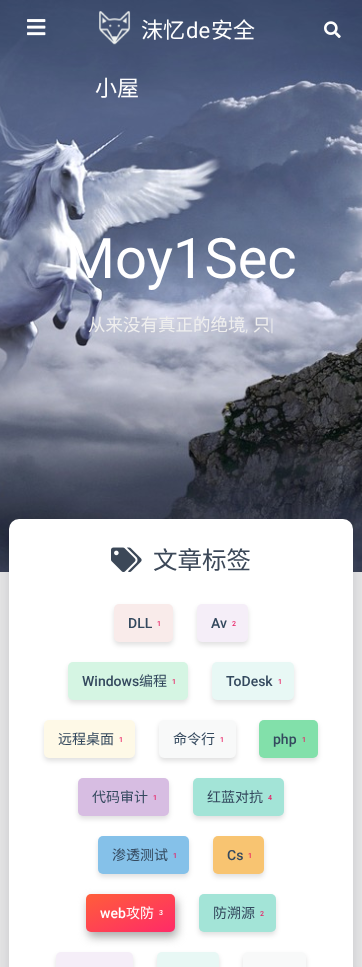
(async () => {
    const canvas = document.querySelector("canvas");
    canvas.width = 362;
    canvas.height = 967;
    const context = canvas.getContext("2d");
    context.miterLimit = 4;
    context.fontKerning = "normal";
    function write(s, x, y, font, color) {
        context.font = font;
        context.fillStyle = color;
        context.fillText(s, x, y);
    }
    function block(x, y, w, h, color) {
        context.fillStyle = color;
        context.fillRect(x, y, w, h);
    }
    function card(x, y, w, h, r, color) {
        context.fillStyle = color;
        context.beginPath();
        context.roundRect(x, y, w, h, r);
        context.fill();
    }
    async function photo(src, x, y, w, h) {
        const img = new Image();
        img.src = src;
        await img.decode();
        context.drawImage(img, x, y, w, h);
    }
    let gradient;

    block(0, 0, 362, 967, "rgb(234, 234, 234)");
    await photo("media/4.png", 0, 0, 362, 572);
    await photo("media/1.png", 27, 19, 19, 17);
    await photo("media/2.png", 99, 11, 32, 34);
    write("沫忆", 141, 38, "22px Noto Sans CJK SC", "rgb(255, 255, 255)");
    write("de", 186, 38, "22px Roboto", "rgb(255, 255, 255)");
    write("安全", 211, 38, "22px Noto Sans CJK SC", "rgb(255, 255, 255)");
    write("小屋", 95, 96, "22px Noto Sans CJK SC", "rgb(255, 255, 255)");
    await photo("media/3.png", 324, 21, 17, 17);
    write("Moy1Sec", 66, 278, "56px Roboto", "rgb(255, 255, 255)");
    write("从来没有真正的绝境", 88, 331, "17.5px Noto Sans CJK SC", "rgb(238, 238, 238)");
    write(",", 245, 331, "300 17.5px Roboto", "rgb(238, 238, 238)");
    write("只", 253, 331, "17.5px Noto Sans CJK SC", "rgb(238, 238, 238)");
    write("|", 270, 331, "300 17.5px Roboto", "rgb(238, 238, 238)");
    context.fillStyle = "rgba(0, 0, 0, 0.07)";
    context.filter = "blur(7.5px)";
    context.beginPath();
    context.roundRect(9, 524, 344, 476, 10);
    context.fill();
    context.filter = "none";
    context.fillStyle = "rgba(50, 50, 93, 0.1)";
    context.filter = "blur(17.5px)";
    context.beginPath();
    context.roundRect(9, 534, 344, 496, 10);
    context.fill();
    context.filter = "none";
    card(9, 519, 344, 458, 10, "rgb(255, 255, 255)");
    await photo("media/5.png", 111, 547, 31, 25);
    write("文章标签", 153, 569, "24.5px Noto Sans CJK SC", "rgb(60, 72, 88)");
    context.fillStyle = "rgba(0, 0, 0, 0.12)";
    context.filter = "blur(2.5px)";
    context.beginPath();
    context.roundRect(114, 607, 59, 38, 5);
    context.fill();
    context.filter = "none";
    card(114, 604, 59, 38, 5, "rgb(249, 235, 234)");
    write("DLL", 128, 628, "500 14px Roboto", "rgb(52, 73, 94)");
    write("1", 157, 626, "500 7px Roboto", "rgb(233, 30, 99)");
    context.fillStyle = "rgba(0, 0, 0, 0.12)";
    context.filter = "blur(2.5px)";
    context.beginPath();
    context.roundRect(197, 607, 51, 38, 5);
    context.fill();
    context.filter = "none";
    card(197, 604, 51, 38, 5, "rgb(245, 238, 248)");
    write("Av", 211, 628, "500 14px Roboto", "rgb(52, 73, 94)");
    write("2", 232, 626, "500 7px Roboto", "rgb(233, 30, 99)");
    context.fillStyle = "rgba(0, 0, 0, 0.12)";
    context.filter = "blur(2.5px)";
    context.beginPath();
    context.roundRect(68, 665, 120, 38, 5);
    context.fill();
    context.filter = "none";
    card(68, 662, 120, 38, 5, "rgb(213, 245, 227)");
    write("Windows", 82, 686, "500 14px Roboto", "rgb(52, 73, 94)");
    write("编程", 139, 686, "14px Noto Sans CJK SC", "rgb(52, 73, 94)");
    write("1", 172, 684, "500 7px Roboto", "rgb(233, 30, 99)");
    context.fillStyle = "rgba(0, 0, 0, 0.12)";
    context.filter = "blur(2.5px)";
    context.beginPath();
    context.roundRect(212, 665, 82, 38, 5);
    context.fill();
    context.filter = "none";
    card(212, 662, 82, 38, 5, "rgb(232, 248, 245)");
    write("ToDesk", 226, 686, "500 14px Roboto", "rgb(52, 73, 94)");
    write("1", 278, 684, "500 7px Roboto", "rgb(233, 30, 99)");
    context.fillStyle = "rgba(0, 0, 0, 0.12)";
    context.filter = "blur(2.5px)";
    context.beginPath();
    context.roundRect(44, 723, 91, 38, 5);
    context.fill();
    context.filter = "none";
    card(44, 720, 91, 38, 5, "rgb(254, 249, 231)");
    write("远程桌面", 58, 744, "14px Noto Sans CJK SC", "rgb(52, 73, 94)");
    write("1", 119, 742, "500 7px Roboto", "rgb(233, 30, 99)");
    context.fillStyle = "rgba(0, 0, 0, 0.12)";
    context.filter = "blur(2.5px)";
    context.beginPath();
    context.roundRect(159, 723, 77, 38, 5);
    context.fill();
    context.filter = "none";
    card(159, 720, 77, 38, 5, "rgb(248, 249, 249)");
    write("命令行", 173, 744, "14px Noto Sans CJK SC", "rgb(52, 73, 94)");
    write("1", 220, 742, "500 7px Roboto", "rgb(233, 30, 99)");
    context.fillStyle = "rgba(0, 0, 0, 0.12)";
    context.filter = "blur(2.5px)";
    context.beginPath();
    context.roundRect(259, 723, 59, 38, 5);
    context.fill();
    context.filter = "none";
    card(259, 720, 59, 38, 5, "rgb(130, 224, 170)");
    write("php", 273, 744, "500 14px Roboto", "rgb(52, 73, 94)");
    write("1", 302, 742, "500 7px Roboto", "rgb(233, 30, 99)");
    context.fillStyle = "rgba(0, 0, 0, 0.12)";
    context.filter = "blur(2.5px)";
    context.beginPath();
    context.roundRect(78, 781, 91, 38, 5);
    context.fill();
    context.filter = "none";
    card(78, 778, 91, 38, 5, "rgb(215, 189, 226)");
    write("代码审计", 92, 802, "14px Noto Sans CJK SC", "rgb(52, 73, 94)");
    write("1", 153, 800, "500 7px Roboto", "rgb(233, 30, 99)");
    context.fillStyle = "rgba(0, 0, 0, 0.12)";
    context.filter = "blur(2.5px)";
    context.beginPath();
    context.roundRect(193, 781, 91, 38, 5);
    context.fill();
    context.filter = "none";
    card(193, 778, 91, 38, 5, "rgb(163, 228, 215)");
    write("红蓝对抗", 207, 802, "14px Noto Sans CJK SC", "rgb(52, 73, 94)");
    write("4", 268, 800, "500 7px Roboto", "rgb(233, 30, 99)");
    context.fillStyle = "rgba(0, 0, 0, 0.12)";
    context.filter = "blur(2.5px)";
    context.beginPath();
    context.roundRect(98, 839, 91, 38, 5);
    context.fill();
    context.filter = "none";
    card(98, 836, 91, 38, 5, "rgb(133, 193, 233)");
    write("渗透测试", 112, 860, "14px Noto Sans CJK SC", "rgb(52, 73, 94)");
    write("1", 173, 858, "500 7px Roboto", "rgb(233, 30, 99)");
    context.fillStyle = "rgba(0, 0, 0, 0.12)";
    context.filter = "blur(2.5px)";
    context.beginPath();
    context.roundRect(213, 839, 51, 38, 5);
    context.fill();
    context.filter = "none";
    card(213, 836, 51, 38, 5, "rgb(248, 196, 113)");
    write("Cs", 227, 860, "500 14px Roboto", "rgb(52, 73, 94)");
    write("1", 248, 858, "500 7px Roboto", "rgb(233, 30, 99)");
    context.fillStyle = "rgb(170, 170, 170)";
    context.filter = "blur(5px)";
    context.beginPath();
    context.roundRect(88, 899, 89, 38, 5);
    context.fill();
    context.filter = "none";
    gradient = context.createLinearGradient(117, 881, 144, 945);
    gradient.addColorStop(0, "rgb(255, 94, 58)");
    gradient.addColorStop(1, "rgb(255, 42, 104)");
    context.fillStyle = gradient;
    context.beginPath();
    context.roundRect(86, 894, 89, 38, 5);
    context.fill();
    write("web", 100, 918, "500 14px Roboto", "rgb(255, 255, 255)");
    write("攻防", 126, 918, "14px Noto Sans CJK SC", "rgb(255, 255, 255)");
    write("3", 159, 915, "500 7px Roboto", "rgb(255, 255, 255)");
    context.fillStyle = "rgba(0, 0, 0, 0.12)";
    context.filter = "blur(2.5px)";
    context.beginPath();
    context.roundRect(199, 897, 77, 38, 5);
    context.fill();
    context.filter = "none";
    card(199, 894, 77, 38, 5, "rgb(163, 228, 215)");
    write("防溯源", 213, 918, "14px Noto Sans CJK SC", "rgb(52, 73, 94)");
    write("2", 260, 916, "500 7px Roboto", "rgb(233, 30, 99)");
    context.fillStyle = "rgba(0, 0, 0, 0.12)";
    context.filter = "blur(2.5px)";
    context.beginPath();
    context.roundRect(56, 955, 77, 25, 5);
    context.fill();
    context.filter = "none";
    card(56, 952, 77, 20, 5, "rgb(245, 238, 248)");
    context.fillStyle = "rgba(0, 0, 0, 0.12)";
    context.filter = "blur(2.5px)";
    context.beginPath();
    context.roundRect(157, 955, 62, 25, 5);
    context.fill();
    context.filter = "none";
    card(157, 952, 62, 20, 5, "rgb(232, 248, 245)");
    context.fillStyle = "rgba(0, 0, 0, 0.12)";
    context.filter = "blur(2.5px)";
    context.beginPath();
    context.roundRect(243, 955, 63, 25, 5);
    context.fill();
    context.filter = "none";
    card(243, 952, 63, 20, 5, "rgb(248, 249, 249)");
})();
